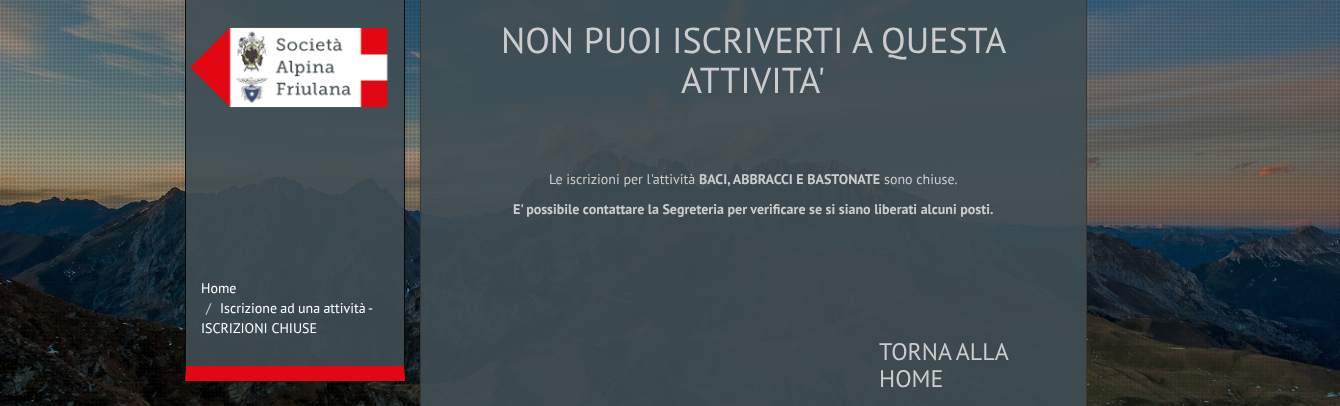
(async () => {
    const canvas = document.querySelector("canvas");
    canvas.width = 1340;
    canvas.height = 406;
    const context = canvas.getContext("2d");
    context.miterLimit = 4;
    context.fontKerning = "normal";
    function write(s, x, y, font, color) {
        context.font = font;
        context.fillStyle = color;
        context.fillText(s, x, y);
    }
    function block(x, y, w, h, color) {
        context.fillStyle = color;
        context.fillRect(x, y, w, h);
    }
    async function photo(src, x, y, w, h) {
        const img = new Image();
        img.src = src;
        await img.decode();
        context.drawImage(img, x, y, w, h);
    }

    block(0, 0, 1340, 406, "rgb(255, 255, 255)");
    await photo("media/1.png", 0, 0, 1340, 406);
    await photo("media/2.png", 0, 405, 1340, 1);
    await photo("media/3.png", 0, 0, 1340, 406);
    block(185, 0, 220, 381, "rgba(63, 78, 84, 0.9)");
    context.fillStyle = "rgb(8, 8, 8)";
    context.beginPath();
    context.moveTo(405, 0);
    context.lineTo(405, 381);
    context.lineTo(404, 366);
    context.lineTo(404, 0);
    context.closePath();
    context.fill();
    context.fillStyle = "rgb(227, 6, 19)";
    context.beginPath();
    context.moveTo(405, 381);
    context.lineTo(185, 381);
    context.lineTo(186, 366);
    context.lineTo(404, 366);
    context.closePath();
    context.fill();
    context.fillStyle = "rgb(8, 8, 8)";
    context.beginPath();
    context.moveTo(185, 381);
    context.lineTo(185, 0);
    context.lineTo(186, 0);
    context.lineTo(186, 366);
    context.closePath();
    context.fill();
    await photo("media/4.png", 190, 27, 198, 81);
    write("Home", 201, 293, "14px PT Sans", "rgb(255, 255, 255)");
    write("/", 206, 313, "14px PT Sans", "rgb(204, 204, 204)");
    context.wordSpacing = "-0.5px";
    write("Iscrizione ad una attività -", 220, 313, "14px PT Sans", "rgb(255, 255, 255)");
    context.wordSpacing = "0px";
    write("ISCRIZIONI CHIUSE", 201, 333, "14px PT Sans", "rgb(255, 255, 255)");
    block(421, 0, 665, 406, "rgba(63, 78, 84, 0.9)");
    block(1086, 0, 1, 406, "rgb(57, 56, 54)");
    block(420, 0, 1, 406, "rgb(57, 56, 54)");
    write("NON PUOI ISCRIVERTI A QUESTA", 501, 53, "36px PT Sans", "rgb(204, 204, 204)");
    write("ATTIVITA'", 681, 93, "36px PT Sans", "rgb(204, 204, 204)");
    write("Le iscrizioni per l'attività", 549, 184, "14px PT Sans", "rgb(204, 204, 204)");
    write("BACI, ABBRACCI E BASTONATE", 699, 184, "bold 14px PT Sans", "rgb(204, 204, 204)");
    write("sono chiuse.", 884, 184, "14px PT Sans", "rgb(204, 204, 204)");
    write("E' possibile contattare la Segreteria per verificare se si siano liberati alcuni posti.", 513, 214, "bold 14px PT Sans", "rgb(204, 204, 204)");
    context.wordSpacing = "-1px";
    write("TORNA ALLA", 879, 360, "24px PT Sans", "rgb(204, 204, 204)");
    context.wordSpacing = "0px";
    write("HOME", 879, 387, "24px PT Sans", "rgb(204, 204, 204)");
})();
